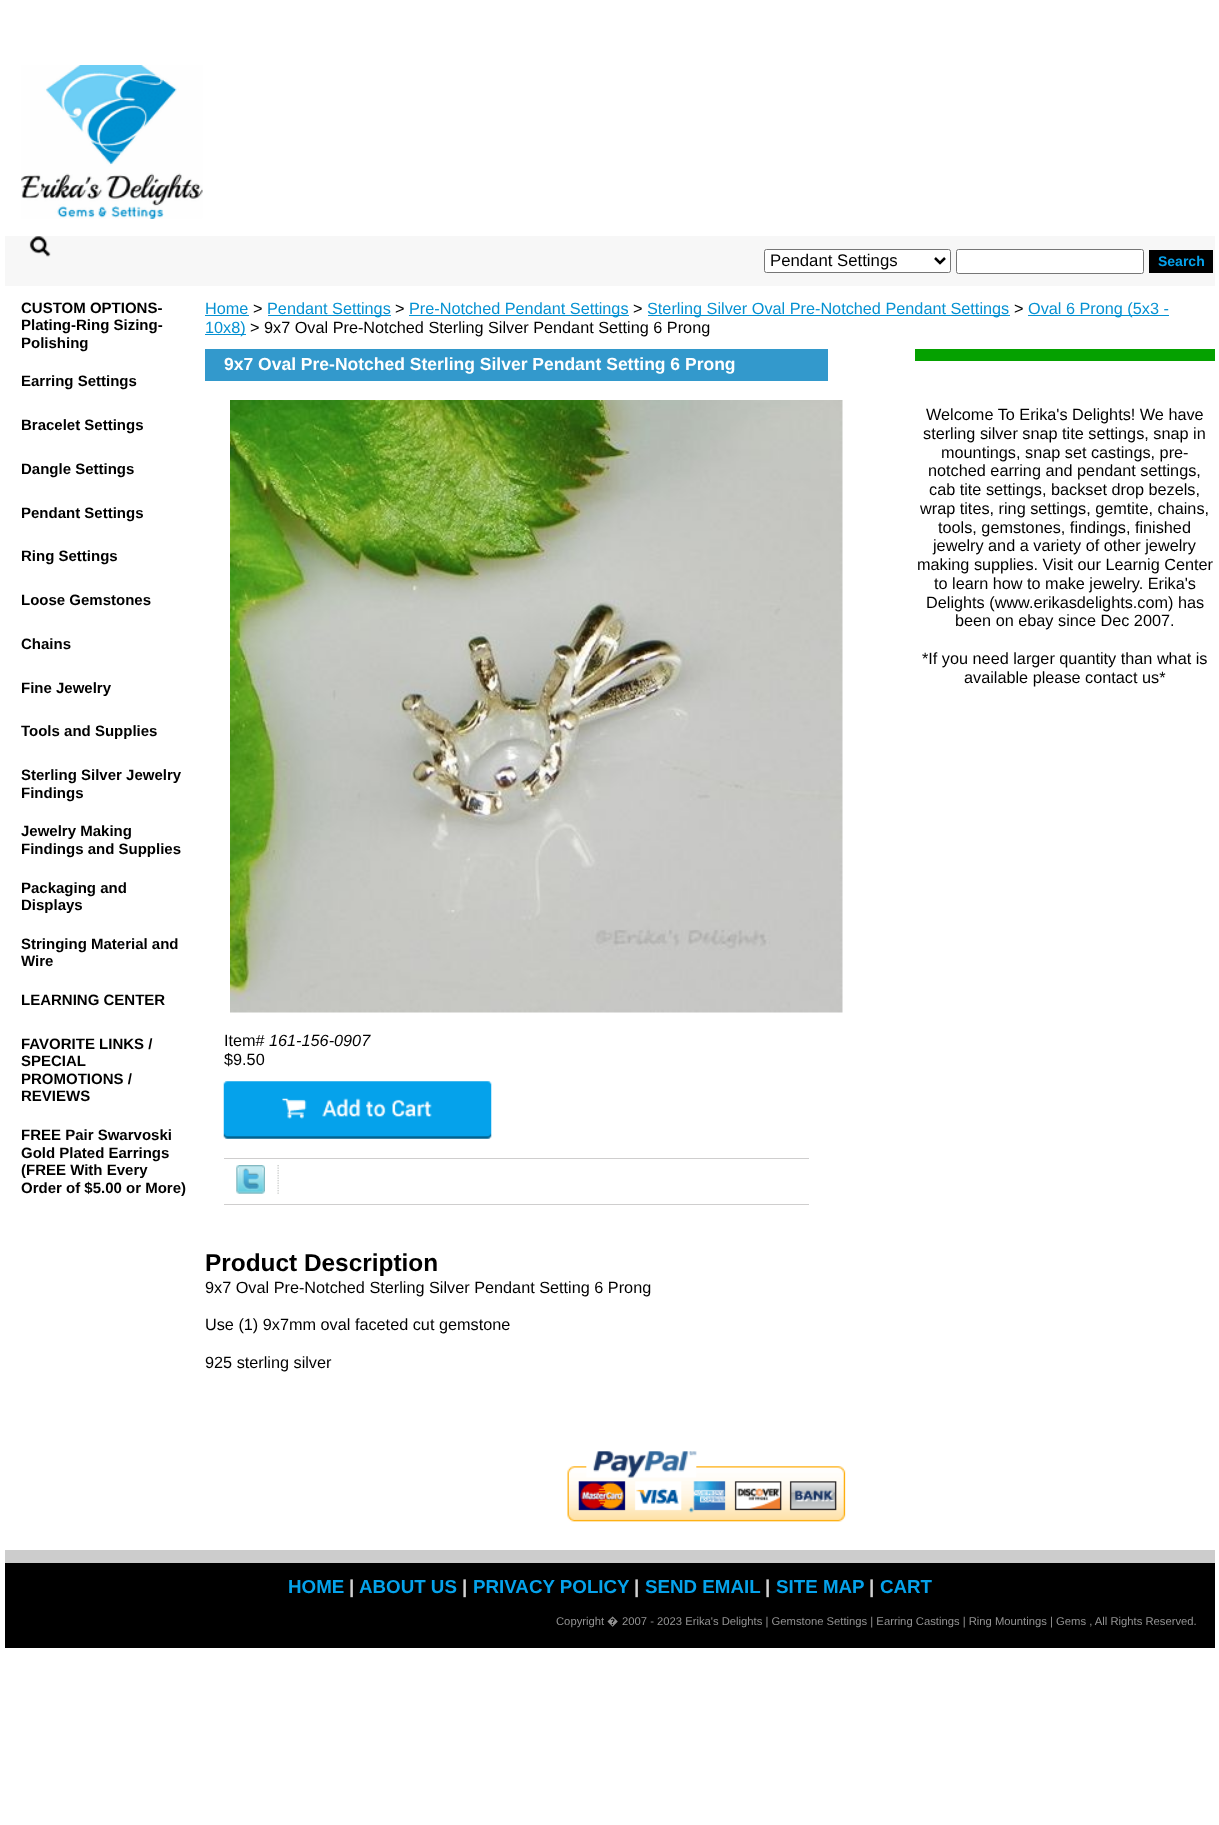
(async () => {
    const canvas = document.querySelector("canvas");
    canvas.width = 1219;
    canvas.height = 1825;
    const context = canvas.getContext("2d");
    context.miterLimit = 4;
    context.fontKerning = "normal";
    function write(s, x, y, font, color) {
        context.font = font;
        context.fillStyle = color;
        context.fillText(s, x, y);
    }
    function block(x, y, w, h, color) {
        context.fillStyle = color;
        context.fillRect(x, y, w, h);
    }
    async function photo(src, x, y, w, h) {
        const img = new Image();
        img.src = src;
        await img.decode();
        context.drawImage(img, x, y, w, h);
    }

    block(0, 0, 1219, 1825, "rgb(255, 255, 255)");
    await photo("media/1.png", 21, 65, 182, 154);
    block(5, 236, 1210, 50, "rgb(247, 247, 247)");
    await photo("media/2.png", 29, 236, 22, 21);
    context.fillStyle = "rgb(255, 255, 255)";
    context.beginPath();
    context.roundRect(764.5, 249.5, 186, 23, 2);
    context.fill();
    context.strokeStyle = "rgb(118, 118, 118)";
    context.stroke();
    context.beginPath();
    context.moveTo(935, 258);
    context.lineTo(940, 263);
    context.lineTo(945, 258);
    context.strokeStyle = "rgb(0, 0, 0)";
    context.lineWidth = 2.5;
    context.stroke();
    write("Pendant Settings", 770, 266, "16.75px Liberation Sans", "rgb(0, 0, 0)");
    context.fillStyle = "rgb(255, 255, 255)";
    context.beginPath();
    context.roundRect(956.5, 249.5, 187, 24, 2);
    context.fill();
    context.strokeStyle = "rgb(118, 118, 118)";
    context.lineWidth = 1;
    context.stroke();
    block(1149, 250, 64, 23, "rgb(0, 0, 0)");
    write("Search", 1158, 266, "bold 14px Liberation Sans", "rgb(5, 162, 235)");
    write("CUSTOM OPTIONS-", 21, 313, "bold 15px Liberation Sans", "rgb(0, 0, 0)");
    write("Plating-Ring Sizing-", 21, 330, "bold 15px Liberation Sans", "rgb(0, 0, 0)");
    write("Polishing", 21, 348, "bold 15px Liberation Sans", "rgb(0, 0, 0)");
    write("Earring Settings", 21, 386, "bold 15px Liberation Sans", "rgb(0, 0, 0)");
    write("Bracelet Settings", 21, 430, "bold 15px Liberation Sans", "rgb(0, 0, 0)");
    write("Dangle Settings", 21, 474, "bold 15px Liberation Sans", "rgb(0, 0, 0)");
    write("Pendant Settings", 21, 518, "bold 15px Liberation Sans", "rgb(0, 0, 0)");
    write("Ring Settings", 21, 561, "bold 15px Liberation Sans", "rgb(0, 0, 0)");
    write("Loose Gemstones", 21, 605, "bold 15px Liberation Sans", "rgb(0, 0, 0)");
    write("Chains", 21, 649, "bold 15px Liberation Sans", "rgb(0, 0, 0)");
    write("Fine Jewelry", 21, 693, "bold 15px Liberation Sans", "rgb(0, 0, 0)");
    write("Tools and Supplies", 21, 736, "bold 15px Liberation Sans", "rgb(0, 0, 0)");
    write("Sterling Silver Jewelry", 21, 780, "bold 15px Liberation Sans", "rgb(0, 0, 0)");
    write("Findings", 21, 798, "bold 15px Liberation Sans", "rgb(0, 0, 0)");
    write("Jewelry Making", 21, 836, "bold 15px Liberation Sans", "rgb(0, 0, 0)");
    write("Findings and Supplies", 21, 854, "bold 15px Liberation Sans", "rgb(0, 0, 0)");
    write("Packaging and", 21, 893, "bold 15px Liberation Sans", "rgb(0, 0, 0)");
    write("Displays", 21, 910, "bold 15px Liberation Sans", "rgb(0, 0, 0)");
    write("Stringing Material and", 21, 949, "bold 15px Liberation Sans", "rgb(0, 0, 0)");
    write("Wire", 21, 966, "bold 15px Liberation Sans", "rgb(0, 0, 0)");
    write("LEARNING CENTER", 21, 1005, "bold 15px Liberation Sans", "rgb(0, 0, 0)");
    write("FAVORITE LINKS /", 21, 1049, "bold 15px Liberation Sans", "rgb(0, 0, 0)");
    write("SPECIAL", 21, 1066, "bold 15px Liberation Sans", "rgb(0, 0, 0)");
    write("PROMOTIONS /", 21, 1084, "bold 15px Liberation Sans", "rgb(0, 0, 0)");
    write("REVIEWS", 21, 1101, "bold 15px Liberation Sans", "rgb(0, 0, 0)");
    write("FREE Pair Swarvoski", 21, 1140, "bold 15px Liberation Sans", "rgb(0, 0, 0)");
    write("Gold Plated Earrings", 21, 1158, "bold 15px Liberation Sans", "rgb(0, 0, 0)");
    write("(FREE With Every", 21, 1175, "bold 15px Liberation Sans", "rgb(0, 0, 0)");
    write("Order of $5.00 or More)", 21, 1193, "bold 15px Liberation Sans", "rgb(0, 0, 0)");
    write("Home", 205, 314, "16.25px Liberation Sans", "rgb(5, 145, 210)");
    block(205, 315, 44, 1, "rgb(5, 145, 210)");
    write(">", 253, 314, "16.25px Liberation Sans", "rgb(0, 0, 0)");
    block(268, 315, 123, 1, "rgb(5, 145, 210)");
    write("Pendant Settings", 267, 314, "16.25px Liberation Sans", "rgb(5, 145, 210)");
    write(">", 395, 314, "16.25px Liberation Sans", "rgb(0, 0, 0)");
    block(409, 315, 220, 1, "rgb(5, 145, 210)");
    write("Pre-Notched Pendant Settings", 409, 314, "16.25px Liberation Sans", "rgb(5, 145, 210)");
    write(">", 633, 314, "16.25px Liberation Sans", "rgb(0, 0, 0)");
    block(648, 315, 362, 1, "rgb(5, 145, 210)");
    write("Sterling Silver Oval Pre-Notched Pendant Settings", 647, 314, "16.25px Liberation Sans", "rgb(5, 145, 210)");
    write(">", 1014, 314, "16.25px Liberation Sans", "rgb(0, 0, 0)");
    block(1028, 315, 141, 1, "rgb(5, 145, 210)");
    write("Oval 6 Prong (5x3 -", 1028, 314, "16.25px Liberation Sans", "rgb(5, 145, 210)");
    block(205, 334, 41, 1, "rgb(5, 145, 210)");
    write("10x8)", 205, 333, "16.25px Liberation Sans", "rgb(5, 145, 210)");
    write("> 9x7 Oval Pre-Notched Sterling Silver Pendant Setting 6 Prong", 250, 333, "16.25px Liberation Sans", "rgb(0, 0, 0)");
    block(205, 349, 623, 32, "rgb(51, 153, 204)");
    write("9x7 Oval Pre-Notched Sterling Silver Pendant Setting 6 Prong", 224, 370, "bold 17.5px Liberation Sans", "rgb(255, 255, 255)");
    await photo("media/3.png", 230, 400, 613, 613);
    write("Item#", 224, 1046, "16.25px Liberation Sans", "rgb(0, 0, 0)");
    write("161-156-0907", 269, 1046, "italic 16.25px Liberation Sans", "rgb(0, 0, 0)");
    write("$9.50", 224, 1065, "16.25px Liberation Sans", "rgb(0, 0, 0)");
    await photo("media/4.png", 223, 1081, 269, 58);
    block(224, 1158, 585, 1, "rgb(207, 206, 206)");
    await photo("media/5.png", 236, 1165, 29, 29);
    await photo("media/6.png", 277, 1165, 2, 29);
    block(224, 1204, 585, 1, "rgb(207, 206, 206)");
    write("Product Description", 205, 1271, "bold 24.4px Liberation Sans", "rgb(0, 0, 0)");
    write("9x7 Oval Pre-Notched Sterling Silver Pendant Setting 6 Prong", 205, 1293, "16.25px Liberation Sans", "rgb(0, 0, 0)");
    write("Use (1) 9x7mm oval faceted cut gemstone", 205, 1330, "16.25px Liberation Sans", "rgb(0, 0, 0)");
    write("925 sterling silver", 205, 1368, "16.25px Liberation Sans", "rgb(0, 0, 0)");
    block(915, 349, 300, 12, "rgb(5, 161, 0)");
    write("Welcome To Erika's Delights! We have", 926, 420, "16.25px Liberation Sans", "rgb(0, 0, 0)");
    write("sterling silver snap tite settings, snap in", 923, 439, "16.25px Liberation Sans", "rgb(0, 0, 0)");
    write("mountings, snap set castings, pre-", 941, 458, "16.25px Liberation Sans", "rgb(0, 0, 0)");
    write("notched earring and pendant settings,", 928, 476, "16.25px Liberation Sans", "rgb(0, 0, 0)");
    write("cab tite settings, backset drop bezels,", 929, 495, "16.25px Liberation Sans", "rgb(0, 0, 0)");
    write("wrap tites, ring settings, gemtite, chains,", 920, 514, "16.25px Liberation Sans", "rgb(0, 0, 0)");
    write("tools, gemstones, findings, finished", 938, 533, "16.25px Liberation Sans", "rgb(0, 0, 0)");
    write("jewelry and a variety of other jewelry", 933, 551, "16.25px Liberation Sans", "rgb(0, 0, 0)");
    write("making supplies. Visit our Learnig Center", 917, 570, "16.25px Liberation Sans", "rgb(0, 0, 0)");
    write("to learn how to make jewelry. Erika's", 934, 589, "16.25px Liberation Sans", "rgb(0, 0, 0)");
    write("Delights (www.erikasdelights.com) has", 926, 608, "16.25px Liberation Sans", "rgb(0, 0, 0)");
    write("been on ebay since Dec 2007.", 955, 626, "16.25px Liberation Sans", "rgb(0, 0, 0)");
    write("*If you need larger quantity than what is", 922, 664, "16.25px Liberation Sans", "rgb(0, 0, 0)");
    write("available please contact us*", 964, 683, "16.25px Liberation Sans", "rgb(0, 0, 0)");
    await photo("media/7.png", 567, 1451, 279, 71);
    block(5, 1563, 1210, 85, "rgb(0, 0, 0)");
    block(5, 1550, 1210, 13, "rgb(204, 204, 204)");
    write("HOME", 288, 1593, "bold 18.75px Liberation Sans", "rgb(5, 162, 235)");
    write("|", 349, 1593, "bold 18.75px Liberation Sans", "rgb(211, 211, 211)");
    write("ABOUT US", 359, 1593, "bold 18.75px Liberation Sans", "rgb(5, 162, 235)");
    write("|", 462, 1593, "bold 18.75px Liberation Sans", "rgb(211, 211, 211)");
    write("PRIVACY POLICY", 473, 1593, "bold 18.75px Liberation Sans", "rgb(5, 162, 235)");
    write("|", 634, 1593, "bold 18.75px Liberation Sans", "rgb(211, 211, 211)");
    write("SEND EMAIL", 645, 1593, "bold 18.75px Liberation Sans", "rgb(5, 162, 235)");
    write("|", 765, 1593, "bold 18.75px Liberation Sans", "rgb(211, 211, 211)");
    write("SITE MAP", 776, 1593, "bold 18.75px Liberation Sans", "rgb(5, 162, 235)");
    write("|", 869, 1593, "bold 18.75px Liberation Sans", "rgb(211, 211, 211)");
    write("CART", 880, 1593, "bold 18.75px Liberation Sans", "rgb(5, 162, 235)");
    write("Copyright", 556, 1625, "11.25px Liberation Sans", "rgb(147, 147, 147)");
    write("�", 607, 1625, "11.25px Noto Sans", "rgb(147, 147, 147)");
    write("2007 - 2023 Erika's Delights | Gemstone Settings | Earring Castings | Ring Mountings | Gems , All Rights Reserved.", 622, 1625, "11.25px Liberation Sans", "rgb(147, 147, 147)");
})();
